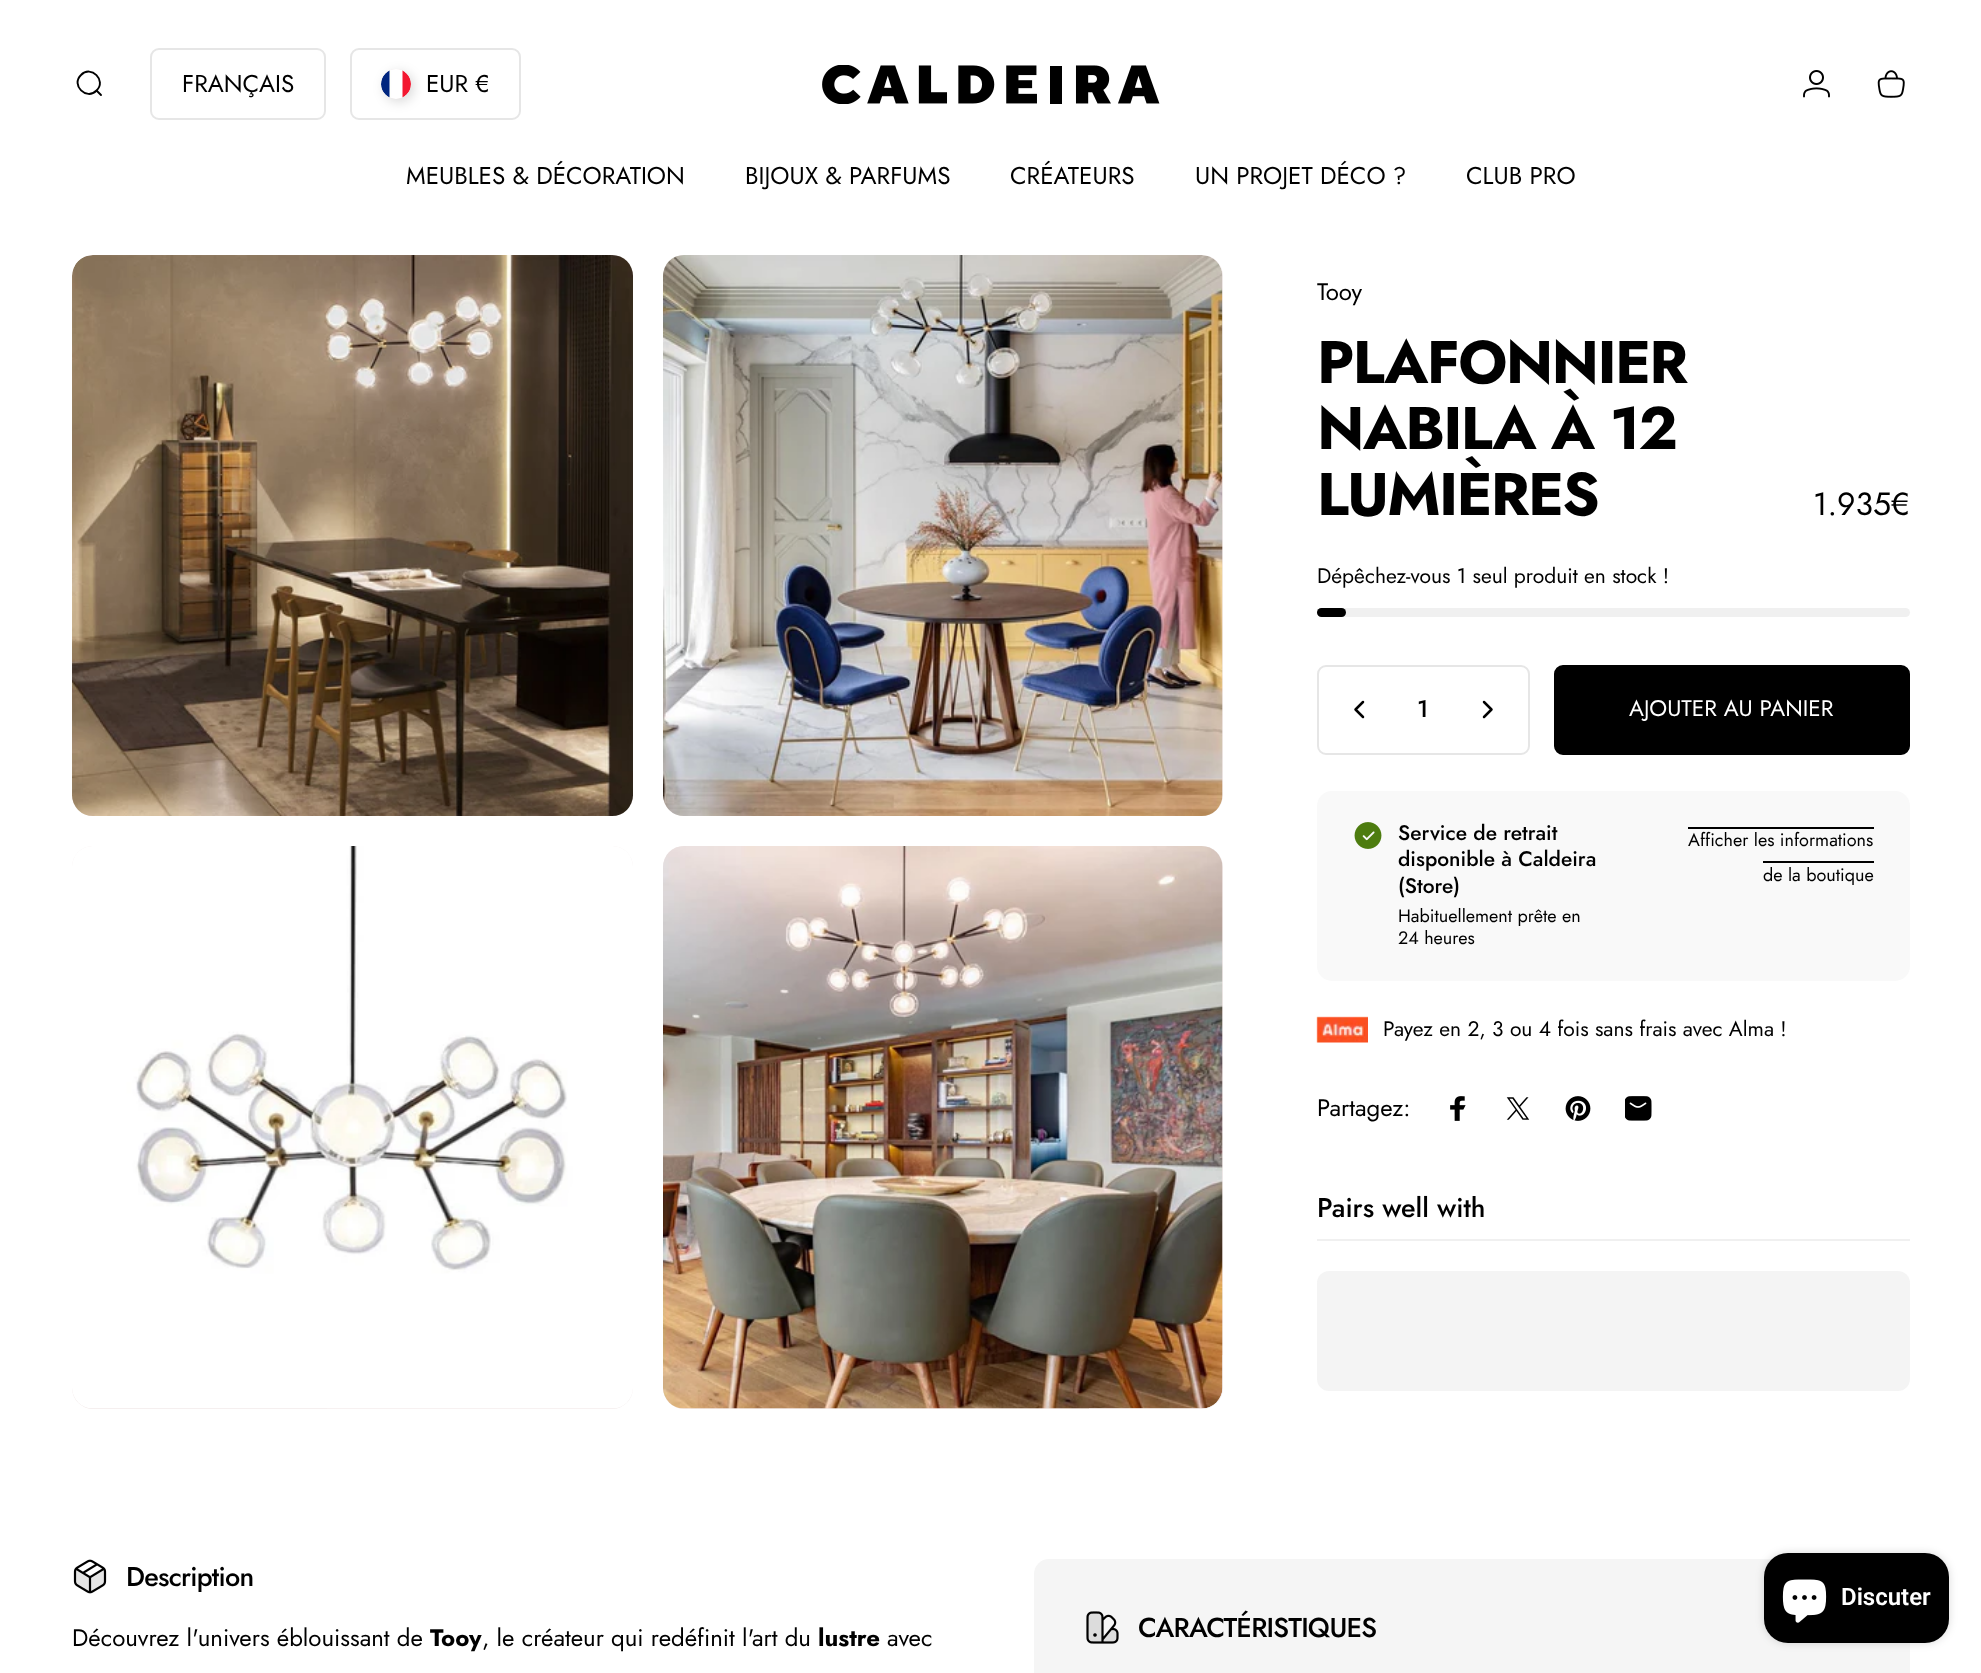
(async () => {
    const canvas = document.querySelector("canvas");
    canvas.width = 1981;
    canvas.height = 1673;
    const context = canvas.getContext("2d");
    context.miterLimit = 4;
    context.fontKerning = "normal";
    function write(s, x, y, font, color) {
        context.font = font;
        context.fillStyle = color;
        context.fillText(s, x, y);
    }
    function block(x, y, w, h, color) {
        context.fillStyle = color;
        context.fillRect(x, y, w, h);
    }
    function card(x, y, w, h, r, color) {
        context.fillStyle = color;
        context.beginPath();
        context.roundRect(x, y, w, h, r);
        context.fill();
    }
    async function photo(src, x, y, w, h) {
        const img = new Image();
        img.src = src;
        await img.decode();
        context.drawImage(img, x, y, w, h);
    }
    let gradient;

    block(0, 0, 1981, 1673, "rgb(255, 255, 255)");
    context.beginPath();
    context.moveTo(101, 95);
    context.lineTo(96.5, 90.5);
    context.moveTo(96.5, 90.5);
    context.bezierCurveTo(107, 80.5, 91, 64.5, 81, 75);
    context.bezierCurveTo(70.5, 85, 86.5, 101, 96.5, 90.5);
    context.closePath();
    context.strokeStyle = "rgb(0, 0, 0)";
    context.lineWidth = 1.9;
    context.lineCap = "round";
    context.stroke();
    context.beginPath();
    context.roundRect(151, 49, 174, 70, 8);
    context.strokeStyle = "rgb(230, 230, 230)";
    context.lineWidth = 2;
    context.stroke();
    write("FRANÇAIS", 182, 92, "24.25px Jost", "rgb(0, 0, 0)");
    context.beginPath();
    context.roundRect(351, 49, 169, 70, 8);
    context.stroke();
    context.fillStyle = "rgba(0, 0, 0, 0.15)";
    context.filter = "blur(6px)";
    context.beginPath();
    context.roundRect(384, 72, 30, 30, 15);
    context.fill();
    context.filter = "none";
    context.fillStyle = "rgb(244, 237, 237)";
    context.beginPath();
    context.arc(396, 84, 15, 0, Math.PI * 2);
    context.fill();
    await photo("media/1.png", 381, 69, 30, 30);
    write("EUR €", 426, 92, "24.25px Jost", "rgb(0, 0, 0)");
    await photo("media/2.png", 822, 65, 338, 39);
    await photo("media/3.png", 1803, 70, 27, 28);
    await photo("media/4.png", 1877, 70, 28, 28);
    write("MEUBLES & DÉCORATION", 406, 184, "24.25px Jost", "rgb(0, 0, 0)");
    write("BIJOUX & PARFUMS", 745, 184, "24.25px Jost", "rgb(0, 0, 0)");
    write("CRÉATEURS", 1010, 184, "24.25px Jost", "rgb(0, 0, 0)");
    write("UN PROJET DÉCO ?", 1195, 184, "24.25px Jost", "rgb(0, 0, 0)");
    write("CLUB PRO", 1466, 184, "24.25px Jost", "rgb(0, 0, 0)");
    card(72, 255, 561, 561, 21, "rgb(244, 237, 237)");
    await photo("media/5.png", 72, 255, 561, 561);
    card(663, 255, 560, 561, 21, "rgb(244, 237, 237)");
    await photo("media/6.png", 663, 255, 560, 561);
    card(72, 846, 561, 563, 21, "rgb(244, 237, 237)");
    await photo("media/7.png", 72, 846, 561, 563);
    card(663, 846, 560, 563, 21, "rgb(244, 237, 237)");
    await photo("media/8.png", 663, 846, 560, 563);
    write("Tooy", 1317, 300, "24px Jost", "rgb(0, 0, 0)");
    context.letterSpacing = "-1.75px";
    write("PLAFONNIER", 1317, 383, "bold 60px Jost", "rgb(0, 0, 0)");
    write("NABILA À 12", 1317, 449, "bold 60px Jost", "rgb(0, 0, 0)");
    write("LUMIÈRES", 1317, 515, "bold 60px Jost", "rgb(0, 0, 0)");
    context.letterSpacing = "0px";
    write("1.935€", 1813, 515, "32px Jost", "rgb(0, 0, 0)");
    write("Dépêchez-vous 1 seul produit en stock !", 1317, 583, "21px Jost", "rgb(0, 0, 0)");
    card(1317, 608, 593, 9, 4.5, "rgb(240, 240, 240)");
    card(1317, 608, 29, 9, 4.5, "rgb(0, 0, 0)");
    context.beginPath();
    context.roundRect(1318, 666, 211, 88, 8);
    context.stroke();
    context.beginPath();
    context.moveTo(1363, 702);
    context.lineTo(1355.5, 709.5);
    context.lineTo(1363, 717);
    context.strokeStyle = "rgb(0, 0, 0)";
    context.lineWidth = 2.5;
    context.lineJoin = "round";
    context.stroke();
    write("1", 1417, 717, "500 24px Jost", "rgb(0, 0, 0)");
    context.beginPath();
    context.moveTo(1484, 702);
    context.lineTo(1491.5, 709.5);
    context.lineTo(1484, 717);
    context.stroke();
    context.beginPath();
    context.roundRect(1555, 666, 354, 88, 8);
    context.fill();
    context.lineWidth = 2;
    context.lineJoin = "miter";
    context.stroke();
    write("AJOUTER AU PANIER", 1629, 716, "22.6px Jost", "rgb(255, 255, 255)");
    card(1317, 791, 593, 190, 15, "rgb(249, 249, 249)");
    await photo("media/9.png", 1354, 822, 28, 27);
    write("Service de retrait", 1398, 840, "500 21px Jost", "rgb(0, 0, 0)");
    write("disponible à Caldeira", 1398, 866, "500 21px Jost", "rgb(0, 0, 0)");
    write("(Store)", 1398, 893, "500 21px Jost", "rgb(0, 0, 0)");
    write("Habituellement prête en", 1398, 922, "18px Jost", "rgb(0, 0, 0)");
    write("24 heures", 1398, 944, "18px Jost", "rgb(0, 0, 0)");
    write("Afficher les informations", 1688, 846, "18px Jost", "rgb(0, 0, 0)");
    block(1688, 827, 186, 2, "rgb(0, 0, 0)");
    write("de la boutique", 1763, 881, "18px Jost", "rgb(0, 0, 0)");
    block(1763, 861, 111, 2, "rgb(0, 0, 0)");
    await photo("media/10.png", 1316, 1016, 52, 27);
    write("Payez en 2, 3 ou 4 fois sans frais avec Alma !", 1383, 1036, "21px Jost", "rgb(0, 0, 0)");
    write("Partagez:", 1317, 1116, "24px Jost", "rgb(0, 0, 0)");
    await photo("media/11.png", 1450, 1096, 16, 25);
    await photo("media/12.png", 1506, 1097, 24, 23);
    await photo("media/13.png", 1565, 1096, 26, 25);
    await photo("media/14.png", 1625, 1096, 27, 25);
    block(1317, 1239, 593, 2, "rgb(240, 240, 240)");
    write("Pairs well with", 1317, 1217, "500 27px Jost", "rgb(0, 0, 0)");
    gradient = context.createLinearGradient(1342, 1126, 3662, 1535);
    gradient.addColorStop(0.4, "rgb(244, 244, 244)");
    gradient.addColorStop(0.63, "rgb(226, 226, 226)");
    gradient.addColorStop(0.79, "rgb(244, 244, 244)");
    context.fillStyle = gradient;
    context.beginPath();
    context.roundRect(1317, 1271, 593, 120, 12);
    context.fill();
    await photo("media/15.png", 73, 1559, 34, 35);
    context.letterSpacing = "-0.75px";
    write("Description", 126, 1586, "500 27px Jost", "rgb(0, 0, 0)");
    context.letterSpacing = "0px";
    write("Découvrez l'univers éblouissant de", 72, 1646, "24px Jost", "rgb(0, 0, 0)");
    write("Tooy", 430, 1646, "bold 24px Jost", "rgb(0, 0, 0)");
    write(", le créateur qui redéfinit l'art du", 482, 1646, "24px Jost", "rgb(0, 0, 0)");
    write("lustre", 818, 1646, "bold 24px Jost", "rgb(0, 0, 0)");
    write("avec", 887, 1646, "24px Jost", "rgb(0, 0, 0)");
    card(1034, 1559, 876, 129, 15, "rgb(245, 245, 245)");
    await photo("media/16.png", 1086, 1611, 33, 33);
    context.letterSpacing = "-0.8px";
    write("CARACTÉRISTIQUES", 1138, 1637, "500 27.25px Jost", "rgb(0, 0, 0)");
    context.fillStyle = "rgba(0, 0, 0, 0.15)";
    context.filter = "blur(4px)";
    context.beginPath();
    context.roundRect(1764, 1553, 185, 90, 24);
    context.fill();
    context.filter = "none";
    card(1764, 1553, 185, 90, 24, "rgb(0, 0, 0)");
    await photo("media/17.png", 1782, 1579, 45, 44);
    context.letterSpacing = "0px";
    write("Discuter", 1841, 1605, "600 24px Roboto", "rgb(255, 255, 255)");
})();
